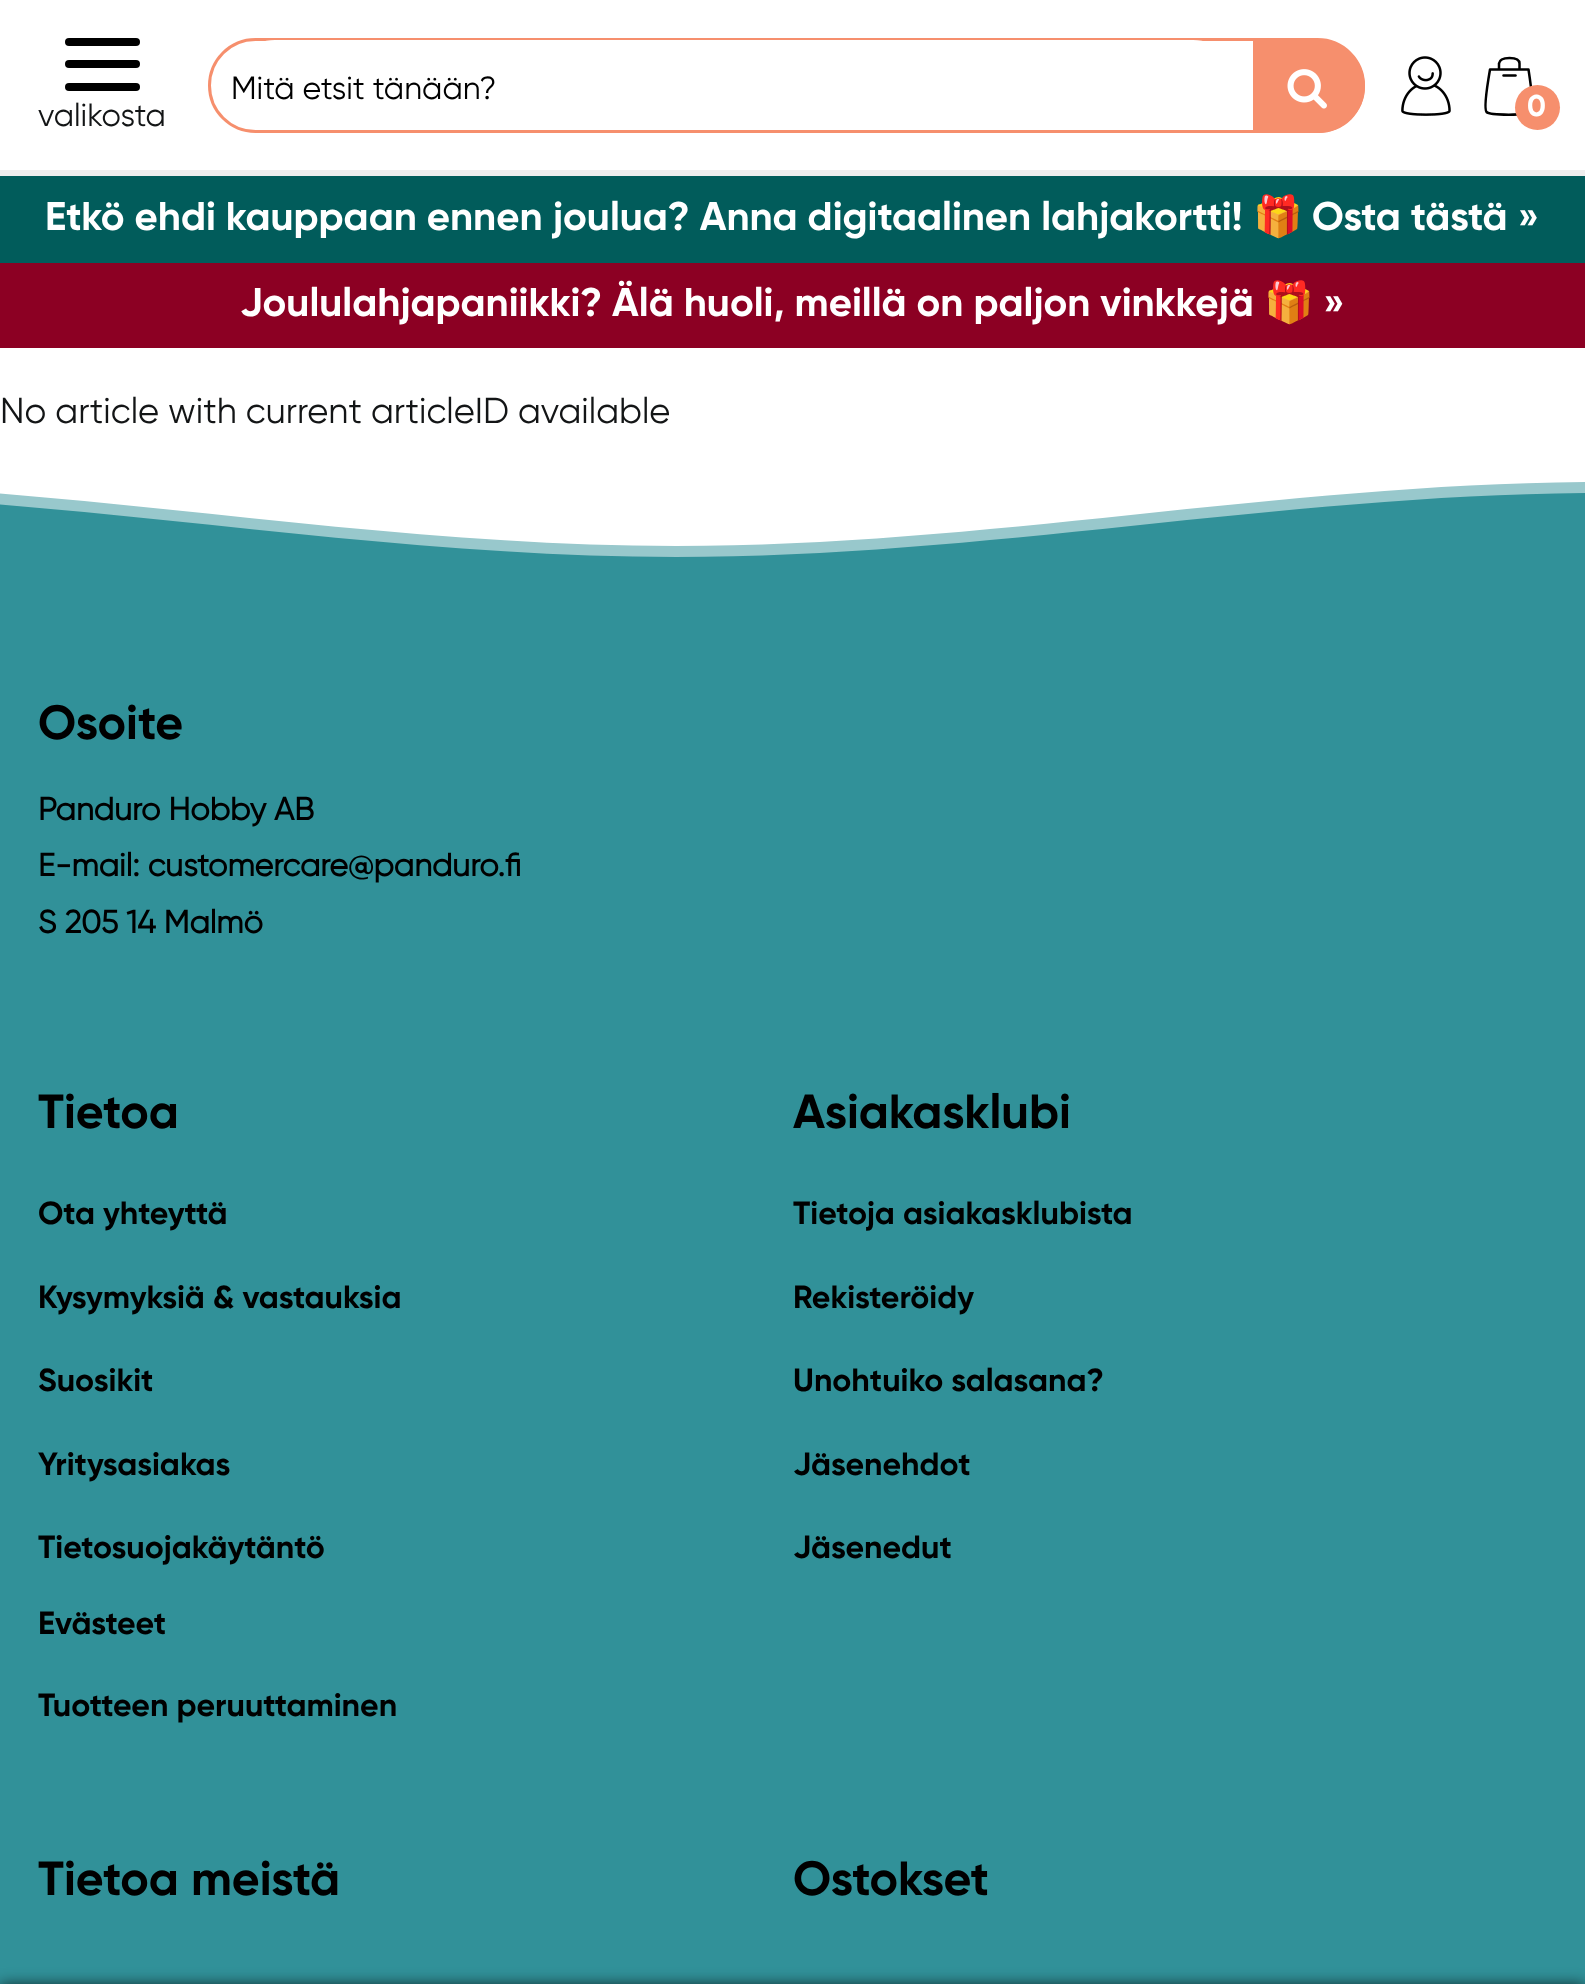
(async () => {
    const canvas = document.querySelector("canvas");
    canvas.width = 1585;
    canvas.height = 1984;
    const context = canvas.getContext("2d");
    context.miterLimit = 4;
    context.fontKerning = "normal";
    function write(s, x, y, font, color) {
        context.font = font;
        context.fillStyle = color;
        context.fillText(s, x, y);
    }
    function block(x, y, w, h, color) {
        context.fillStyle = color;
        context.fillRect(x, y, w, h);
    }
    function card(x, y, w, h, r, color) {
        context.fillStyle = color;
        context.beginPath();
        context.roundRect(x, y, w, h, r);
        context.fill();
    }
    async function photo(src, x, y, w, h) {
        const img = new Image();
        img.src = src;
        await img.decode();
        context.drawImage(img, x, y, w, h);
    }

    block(0, 0, 1585, 1984, "rgb(255, 255, 255)");
    block(0, 170, 1585, 6, "rgb(238, 238, 238)");
    context.beginPath();
    context.roundRect(209.5, 39.5, 1154, 92, 46);
    context.strokeStyle = "rgb(246, 143, 109)";
    context.lineWidth = 3;
    context.stroke();
    card(230, 40, 1008, 90, 45, "rgb(255, 255, 255)");
    write("Mitä etsit tänään?", 231, 99, "32px Gilroy", "rgb(0, 0, 0)");
    context.fillStyle = "rgb(246, 143, 109)";
    context.beginPath();
    context.roundRect(1253, 40, 112, 93, [0, 46.5, 46.5, 0]);
    context.fill();
    await photo("media/1.png", 1287, 69, 40, 40);
    await photo("media/2.png", 1401, 56, 50, 60);
    card(65, 60, 75, 8, 4, "rgb(0, 0, 0)");
    card(65, 38, 75, 8, 4, "rgb(0, 0, 0)");
    card(65, 83, 75, 8, 4, "rgb(0, 0, 0)");
    write("valikosta", 38, 126, "32px Gilroy", "rgb(19, 21, 22)");
    context.beginPath();
    context.moveTo(1490, 69.5);
    context.lineTo(1528.5, 69.5);
    context.bezierCurveTo(1532.5, 95.5, 1533.5, 109.5, 1531, 112);
    context.bezierCurveTo(1527.5, 115.5, 1490, 115.5, 1486.5, 112);
    context.bezierCurveTo(1484.5, 109.5, 1485.5, 95.5, 1490, 69.5);
    context.closePath();
    context.strokeStyle = "rgb(0, 0, 0)";
    context.lineWidth = 2.5;
    context.lineCap = "round";
    context.lineJoin = "round";
    context.stroke();
    context.beginPath();
    context.moveTo(1499, 70);
    context.lineTo(1499, 63.5);
    context.bezierCurveTo(1499.5, 59.5, 1503, 58, 1509.5, 58);
    context.bezierCurveTo(1516, 58, 1519.5, 59.5, 1519.5, 63.5);
    context.lineTo(1519.5, 70);
    context.lineCap = "butt";
    context.lineJoin = "miter";
    context.stroke();
    context.beginPath();
    context.moveTo(1503.5, 75.5);
    context.lineTo(1515.5, 75.5);
    context.lineCap = "round";
    context.lineJoin = "round";
    context.stroke();
    context.fillStyle = "rgb(246, 143, 109)";
    context.beginPath();
    context.arc(1537.5, 107.5, 22.5, 0, Math.PI * 2);
    context.fill();
    write("0", 1527, 116, "bold 30px Gilroy", "rgb(255, 255, 255)");
    block(0, 575, 1585, 1409, "rgb(49, 145, 153)");
    context.fillStyle = "rgba(0, 0, 0, 0.75)";
    context.filter = "blur(7.5px)";
    context.beginPath();
    context.rect(0, 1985, 1585, 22);
    context.fill();
    context.filter = "none";
    block(0, 176, 1585, 87, "rgb(1, 92, 91)");
    write("Etkö ehdi kauppaan ennen joulua? Anna digitaalinen lahjakortti!", 45, 230, "bold 40px Gilroy", "rgb(255, 255, 255)");
    write("🎁", 1253, 230, "40px Noto Color Emoji", "rgb(255, 255, 255)");
    write("Osta tästä »", 1312, 230, "bold 40px Gilroy", "rgb(255, 255, 255)");
    block(0, 263, 1585, 85, "rgb(140, 0, 35)");
    write("Joululahjapaniikki? Älä huoli, meillä on paljon vinkkejä", 240, 316, "bold 40px Gilroy", "rgb(255, 255, 255)");
    write("🎁", 1264, 316, "40px Noto Color Emoji", "rgb(255, 255, 255)");
    write("»", 1323, 316, "bold 40px Gilroy", "rgb(255, 255, 255)");
    write("No article with current articleID available", 0, 423, "36px Gilroy", "rgb(19, 21, 22)");
    context.save();
    context.beginPath();
    context.rect(0, 475, 1585, 100);
    context.clip();
    context.fillStyle = "rgb(152, 200, 204)";
    context.beginPath();
    context.moveTo(-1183, 546);
    context.bezierCurveTo(-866, 546, -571, 482, -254, 482);
    context.bezierCurveTo(63, 482, 359, 546, 676, 546);
    context.bezierCurveTo(993, 546, 1289, 482, 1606, 482);
    context.bezierCurveTo(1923, 482, 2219, 546, 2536, 546);
    context.lineTo(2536, 704);
    context.lineTo(-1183, 704);
    context.closePath();
    context.fill();
    context.fillStyle = "rgb(49, 145, 153)";
    context.beginPath();
    context.moveTo(-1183, 557);
    context.bezierCurveTo(-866, 557, -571, 493, -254, 493);
    context.bezierCurveTo(63, 493, 359, 557, 676, 557);
    context.bezierCurveTo(993, 557, 1289, 493, 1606, 493);
    context.bezierCurveTo(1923, 493, 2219, 557, 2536, 557);
    context.lineTo(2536, 714);
    context.lineTo(-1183, 714);
    context.closePath();
    context.fill();
    context.restore();
    write("Osoite", 38, 739, "bold 48px Gilroy", "rgb(0, 0, 0)");
    write("Panduro Hobby AB", 38, 820, "bold 32px 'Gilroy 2'", "rgb(0, 0, 0)");
    write("E-mail: customercare@panduro.fi", 38, 876, "bold 32px 'Gilroy 2'", "rgb(0, 0, 0)");
    write("S 205 14 Malmö", 38, 933, "bold 32px 'Gilroy 2'", "rgb(0, 0, 0)");
    write("Tietoa", 38, 1128, "bold 48px Gilroy", "rgb(0, 0, 0)");
    write("Ota yhteyttä", 38, 1224, "bold 32px Gilroy", "rgb(0, 0, 0)");
    write("Kysymyksiä & vastauksia", 38, 1308, "bold 32px Gilroy", "rgb(0, 0, 0)");
    write("Suosikit", 38, 1391, "bold 32px Gilroy", "rgb(0, 0, 0)");
    write("Yritysasiakas", 38, 1475, "bold 32px Gilroy", "rgb(0, 0, 0)");
    write("Tietosuojakäytäntö", 38, 1558, "bold 32px Gilroy", "rgb(0, 0, 0)");
    write("Evästeet", 38, 1634, "bold 32px Gilroy", "rgb(0, 0, 0)");
    write("Tuotteen peruuttaminen", 38, 1716, "bold 32px Gilroy", "rgb(0, 0, 0)");
    write("Asiakasklubi", 793, 1128, "bold 48px Gilroy", "rgb(0, 0, 0)");
    write("Tietoja asiakasklubista", 793, 1224, "bold 32px Gilroy", "rgb(0, 0, 0)");
    write("Rekisteröidy", 793, 1308, "bold 32px Gilroy", "rgb(0, 0, 0)");
    write("Unohtuiko salasana?", 793, 1391, "bold 32px Gilroy", "rgb(0, 0, 0)");
    write("Jäsenehdot", 793, 1475, "bold 32px Gilroy", "rgb(0, 0, 0)");
    write("Jäsenedut", 793, 1558, "bold 32px Gilroy", "rgb(0, 0, 0)");
    write("Tietoa meistä", 38, 1895, "bold 48px Gilroy", "rgb(0, 0, 0)");
    write("Ostokset", 793, 1895, "bold 48px Gilroy", "rgb(0, 0, 0)");
})();
